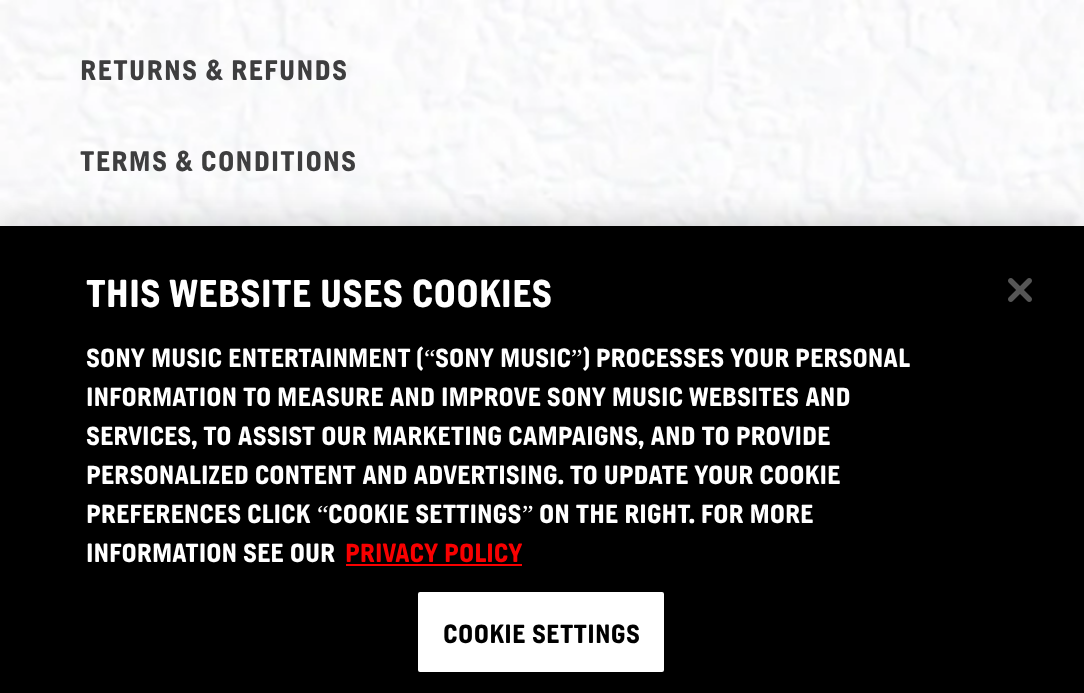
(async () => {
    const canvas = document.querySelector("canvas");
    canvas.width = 1084;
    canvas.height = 693;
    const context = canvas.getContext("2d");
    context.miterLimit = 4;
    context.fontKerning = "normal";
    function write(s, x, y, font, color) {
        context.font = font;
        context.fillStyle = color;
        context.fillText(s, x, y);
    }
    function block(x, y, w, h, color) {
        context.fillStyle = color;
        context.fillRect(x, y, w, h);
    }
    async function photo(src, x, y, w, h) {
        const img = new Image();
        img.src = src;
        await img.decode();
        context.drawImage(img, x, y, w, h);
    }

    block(0, 0, 1084, 693, "rgb(255, 255, 255)");
    await photo("media/1.png", 0, 0, 1084, 226);
    context.letterSpacing = "1.25px";
    write("RETURNS & REFUNDS", 80, 80, "bold 28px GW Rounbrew", "rgb(62, 62, 63)");
    write("TERMS & CONDITIONS", 80, 171, "bold 28px GW Rounbrew", "rgb(62, 62, 63)");
    context.fillStyle = "rgba(0, 0, 0, 0.2)";
    context.filter = "blur(18px)";
    context.beginPath();
    context.rect(0, 226, 1084, 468);
    context.fill();
    context.filter = "none";
    block(0, 226, 1084, 467, "rgb(0, 0, 0)");
    context.letterSpacing = "0px";
    write("THIS WEBSITE USES COOKIES", 86, 307, "bold 38.4px GW Rounbrew", "rgb(255, 255, 255)");
    write("SONY MUSIC ENTERTAINMENT (", 86, 367, "bold 26px GW Rounbrew", "rgb(255, 255, 255)");
    write("“", 424, 367, "26px Liberation Serif", "rgb(255, 255, 255)");
    write("SONY MUSIC", 435, 367, "bold 26px GW Rounbrew", "rgb(255, 255, 255)");
    write("”", 571, 367, "26px Liberation Serif", "rgb(255, 255, 255)");
    write(") PROCESSES YOUR PERSONAL", 583, 367, "bold 26px GW Rounbrew", "rgb(255, 255, 255)");
    write("INFORMATION TO MEASURE AND IMPROVE SONY MUSIC WEBSITES AND", 86, 406, "bold 26px GW Rounbrew", "rgb(255, 255, 255)");
    write("SERVICES, TO ASSIST OUR MARKETING CAMPAIGNS, AND TO PROVIDE", 86, 445, "bold 26px GW Rounbrew", "rgb(255, 255, 255)");
    write("PERSONALIZED CONTENT AND ADVERTISING. TO UPDATE YOUR COOKIE", 86, 484, "bold 26px GW Rounbrew", "rgb(255, 255, 255)");
    write("PREFERENCES CLICK", 86, 523, "bold 26px GW Rounbrew", "rgb(255, 255, 255)");
    write("“", 317, 523, "26px Liberation Serif", "rgb(255, 255, 255)");
    write("COOKIE SETTINGS", 328, 523, "bold 26px GW Rounbrew", "rgb(255, 255, 255)");
    write("”", 522, 523, "26px Liberation Serif", "rgb(255, 255, 255)");
    write("ON THE RIGHT. FOR MORE", 539, 523, "bold 26px GW Rounbrew", "rgb(255, 255, 255)");
    write("INFORMATION SEE OUR", 86, 562, "bold 26px GW Rounbrew", "rgb(255, 255, 255)");
    write("PRIVACY POLICY", 345, 562, "bold 26px GW Rounbrew", "rgb(249, 0, 0)");
    block(346, 564, 176, 2, "rgb(249, 0, 0)");
    context.fillStyle = "rgb(255, 255, 255)";
    context.beginPath();
    context.roundRect(417, 591, 248, 82, 3);
    context.fill();
    context.strokeStyle = "rgb(0, 0, 0)";
    context.lineWidth = 2;
    context.stroke();
    context.letterSpacing = "0.25px";
    write("COOKIE SETTINGS", 443, 643, "bold 26px GW Rounbrew", "rgb(0, 0, 0)");
    await photo("media/2.png", 1008, 278, 24, 24);
})();
